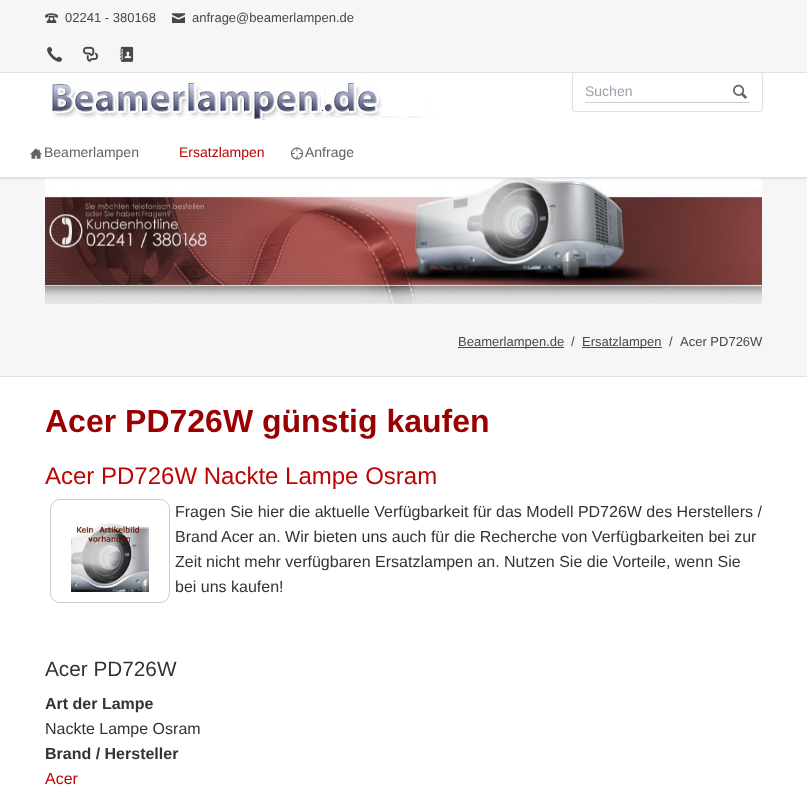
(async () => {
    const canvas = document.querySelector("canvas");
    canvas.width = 807;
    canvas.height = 795;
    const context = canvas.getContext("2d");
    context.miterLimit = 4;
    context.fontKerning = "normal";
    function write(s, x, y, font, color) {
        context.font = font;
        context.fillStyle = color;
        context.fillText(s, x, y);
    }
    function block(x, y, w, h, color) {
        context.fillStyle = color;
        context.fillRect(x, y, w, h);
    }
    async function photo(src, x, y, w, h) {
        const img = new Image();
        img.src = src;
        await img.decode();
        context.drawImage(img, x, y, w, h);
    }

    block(0, 0, 807, 795, "rgb(255, 255, 255)");
    block(0, 0, 807, 72, "rgb(246, 246, 246)");
    block(0, 72, 807, 1, "rgb(229, 222, 222)");
    await photo("media/1.png", 45, 13, 13, 10);
    write("02241 - 380168", 65, 22, "13px Liberation Sans", "rgb(76, 69, 69)");
    await photo("media/2.png", 172, 13, 13, 10);
    write("anfrage@beamerlampen.de", 192, 22, "13px Liberation Sans", "rgb(76, 69, 69)");
    await photo("media/3.png", 47, 46, 15, 16);
    await photo("media/4.png", 83, 46, 15, 16);
    await photo("media/5.png", 119, 46, 15, 16);
    block(0, 178, 807, 198, "rgb(246, 246, 246)");
    await photo("media/10.png", 45, 178, 717, 126);
    context.save();
    context.beginPath();
    context.rect(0, 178, 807, 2);
    context.clip();
    context.fillStyle = "rgba(0, 0, 0, 0.1)";
    context.filter = "blur(1px)";
    context.beginPath();
    context.rect(0, 74, 807, 105);
    context.fill();
    context.filter = "none";
    context.restore();
    block(0, 177, 807, 1, "rgb(229, 222, 222)");
    await photo("media/6.png", 52, 78, 384, 42);
    context.fillStyle = "rgb(255, 255, 255)";
    context.beginPath();
    context.roundRect(572.5, 72.5, 190, 39, 2.5);
    context.fill();
    context.strokeStyle = "rgb(229, 222, 222)";
    context.stroke();
    block(585, 102, 165, 1, "rgb(210, 203, 203)");
    write("Suchen", 585, 96, "14px Liberation Sans", "rgb(152, 160, 171)");
    await photo("media/7.png", 733, 84, 14, 15);
    await photo("media/8.png", 30, 148, 12, 11);
    write("Beamerlampen", 44, 157, "14px Liberation Sans", "rgb(99, 99, 99)");
    write("Ersatzlampen", 179, 157, "14px Liberation Sans", "rgb(185, 5, 4)");
    await photo("media/9.png", 291, 147, 12, 13);
    write("Anfrage", 305, 157, "14px Liberation Sans", "rgb(99, 99, 99)");
    block(0, 376, 807, 1, "rgb(229, 222, 222)");
    block(458, 347, 106, 1, "rgb(76, 69, 69)");
    write("Beamerlampen.de", 458, 346, "13px Liberation Sans", "rgb(76, 69, 69)");
    write("/", 571, 346, "13px Liberation Sans", "rgb(76, 69, 69)");
    block(582, 347, 80, 1, "rgb(76, 69, 69)");
    write("Ersatzlampen", 582, 346, "13px Liberation Sans", "rgb(76, 69, 69)");
    write("/", 669, 346, "13px Liberation Sans", "rgb(76, 69, 69)");
    write("Acer PD726W", 680, 346, "13px Liberation Sans", "rgb(76, 69, 69)");
    write("Acer PD726W günstig kaufen", 45, 432, "bold 32px Liberation Sans", "rgb(153, 1, 0)");
    write("Acer PD726W Nackte Lampe Osram", 45, 484, "24px Liberation Sans", "rgb(185, 5, 4)");
    context.beginPath();
    context.roundRect(50.5, 499.5, 119, 103, 9.5);
    context.strokeStyle = "rgb(204, 204, 204)";
    context.stroke();
    await photo("media/11.png", 71, 523, 78, 69);
    write("Fragen Sie hier die aktuelle Verfügbarkeit für das Modell PD726W des Herstellers /", 175, 517, "16px Liberation Sans", "rgb(51, 51, 51)");
    write("Brand", 175, 542, "16px Liberation Sans", "rgb(51, 51, 51)");
    write("Acer an. Wir bieten uns auch für die Recherche von Verfügbarkeiten bei zur", 221, 542, "16px Liberation Sans", "rgb(51, 51, 51)");
    write("Zeit nicht mehr verfügbaren Ersatzlampen an. Nutzen Sie die Vorteile, wenn Sie", 175, 567, "16px Liberation Sans", "rgb(51, 51, 51)");
    write("bei uns kaufen!", 175, 592, "16px Liberation Sans", "rgb(51, 51, 51)");
    write("Acer PD726W", 45, 676, "20.75px Liberation Sans", "rgb(51, 51, 51)");
    write("Art der Lampe", 45, 709, "bold 16px Liberation Sans", "rgb(51, 51, 51)");
    write("Nackte Lampe Osram", 45, 734, "16px Liberation Sans", "rgb(51, 51, 51)");
    write("Brand / Hersteller", 45, 759, "bold 16px Liberation Sans", "rgb(51, 51, 51)");
    write("Acer", 45, 784, "16px Liberation Sans", "rgb(185, 5, 4)");
})();
